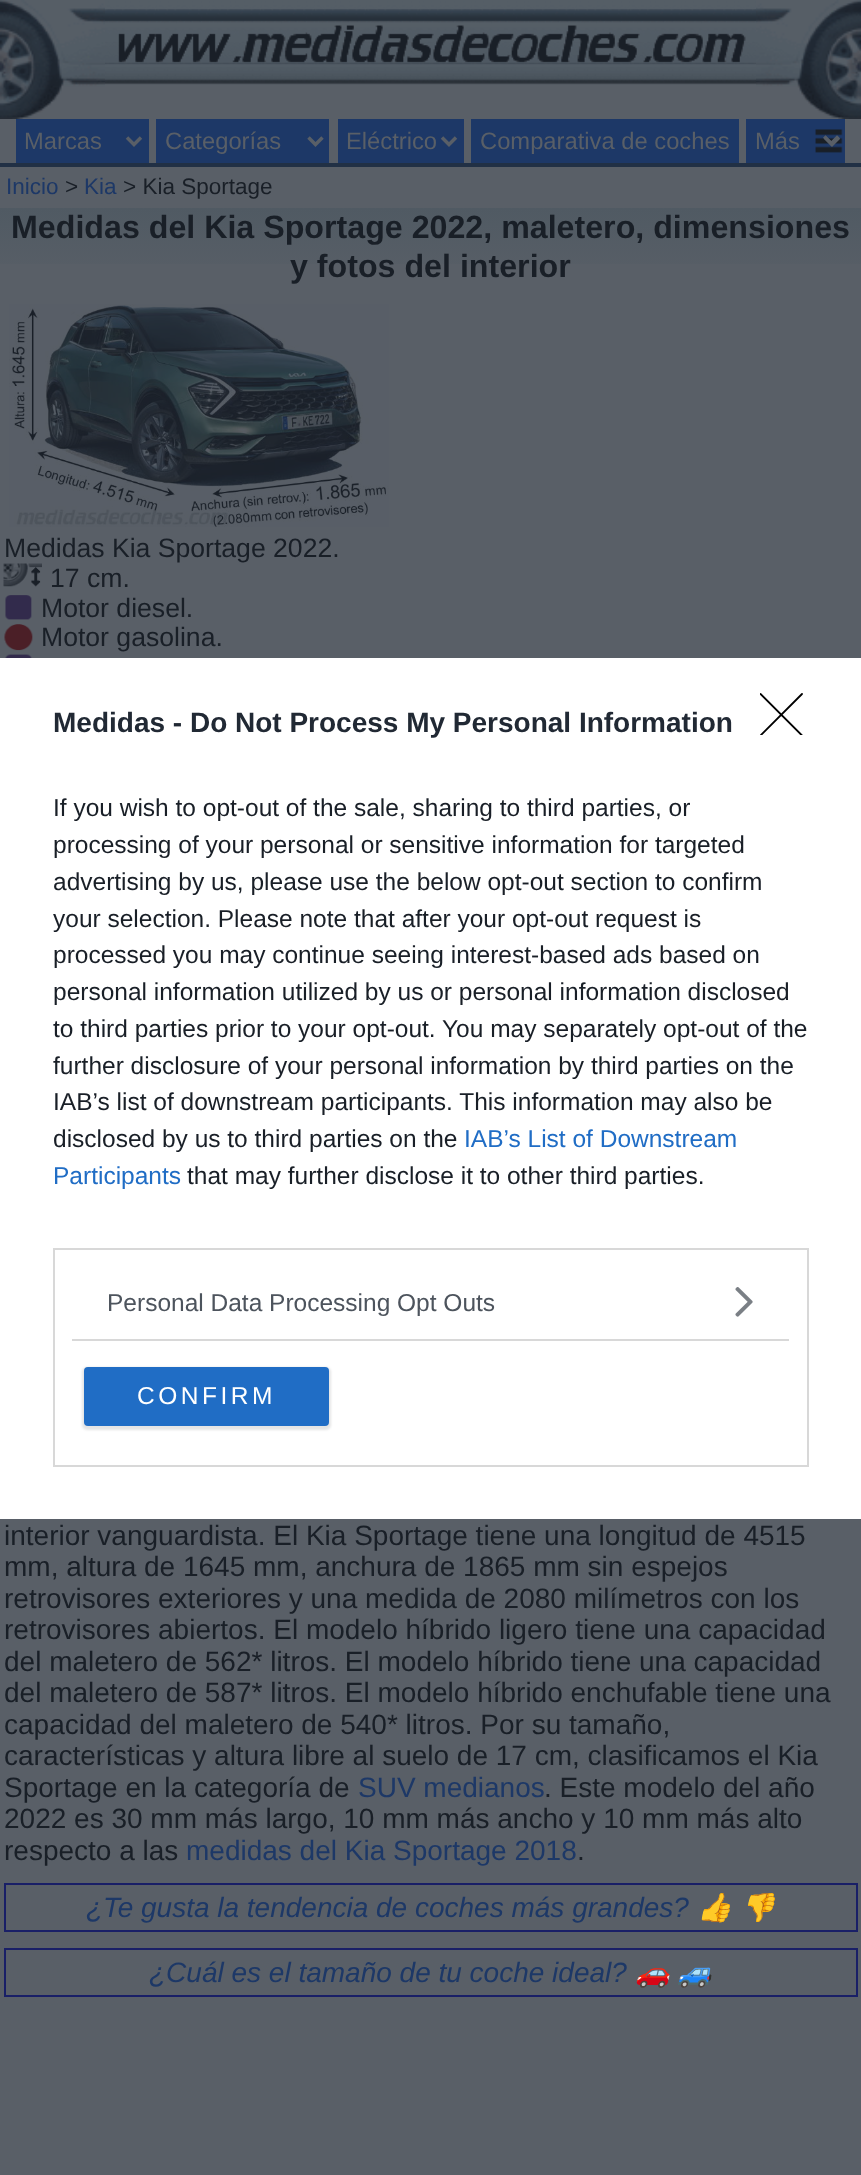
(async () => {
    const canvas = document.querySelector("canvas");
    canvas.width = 861;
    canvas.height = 2175;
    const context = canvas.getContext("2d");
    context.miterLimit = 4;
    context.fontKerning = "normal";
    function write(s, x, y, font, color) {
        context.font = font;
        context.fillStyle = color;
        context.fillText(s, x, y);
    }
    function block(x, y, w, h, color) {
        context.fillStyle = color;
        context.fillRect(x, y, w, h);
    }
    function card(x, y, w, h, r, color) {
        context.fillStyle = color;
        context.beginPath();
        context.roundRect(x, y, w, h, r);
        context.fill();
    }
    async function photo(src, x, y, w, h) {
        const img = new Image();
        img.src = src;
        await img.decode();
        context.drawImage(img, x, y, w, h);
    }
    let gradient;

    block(0, 0, 861, 2175, "rgb(89, 95, 103)");
    await photo("media/1.png", 0, 0, 105, 119);
    await photo("media/2.png", 105, 0, 651, 85);
    await photo("media/3.png", 118, 25, 628, 38);
    await photo("media/4.png", 756, 0, 105, 119);
    block(0, 163, 861, 4, "rgb(33, 48, 69)");
    block(16, 119, 133, 44, "rgb(29, 56, 103)");
    context.beginPath();
    context.moveTo(127, 137.5);
    context.lineTo(134, 144.5);
    context.lineTo(141, 137.5);
    context.strokeStyle = "rgb(89, 95, 103)";
    context.lineWidth = 3.5;
    context.stroke();
    write("Marcas", 24, 149, "23.75px Liberation Sans", "rgb(89, 95, 103)");
    block(156, 119, 173, 44, "rgb(29, 56, 103)");
    context.beginPath();
    context.moveTo(308.5, 137.5);
    context.lineTo(315.5, 144.5);
    context.lineTo(322.5, 137.5);
    context.stroke();
    write("Categorías", 165, 149, "23.75px Liberation Sans", "rgb(89, 95, 103)");
    block(338, 119, 126, 44, "rgb(29, 56, 103)");
    context.beginPath();
    context.moveTo(442, 137.5);
    context.lineTo(449, 144.5);
    context.lineTo(456, 137.5);
    context.stroke();
    context.save();
    context.beginPath();
    context.rect(347, 126, 89, 30);
    context.clip();
    write("Eléctrico", 346, 149, "23.75px Liberation Sans", "rgb(89, 95, 103)");
    context.restore();
    block(471, 119, 268, 44, "rgb(29, 56, 103)");
    write("Comparativa de coches", 480, 149, "23.75px Liberation Sans", "rgb(89, 95, 103)");
    block(746, 119, 99, 44, "rgb(29, 56, 103)");
    await photo("media/5.png", 815, 129, 28, 24);
    context.beginPath();
    context.moveTo(825, 137.5);
    context.lineTo(832, 144.5);
    context.lineTo(839, 137.5);
    context.stroke();
    write("Más", 755, 149, "23.75px Liberation Sans", "rgb(89, 95, 103)");
    write("Inicio", 6, 194, "22.5px Liberation Sans", "rgb(29, 56, 103)");
    write(">", 65, 194, "22.5px Liberation Sans", "rgb(25, 31, 39)");
    write("Kia", 84, 194, "22.5px Liberation Sans", "rgb(29, 56, 103)");
    write("> Kia Sportage", 123, 194, "22.5px Liberation Sans", "rgb(25, 31, 39)");
    gradient = context.createLinearGradient(431, 208, 431, 285);
    gradient.addColorStop(0, "rgb(80, 90, 99)");
    gradient.addColorStop(1, "rgb(89, 95, 103)");
    context.fillStyle = gradient;
    context.fillRect(0, 208, 861, 56);
    write("Medidas del Kia Sportage 2022, maletero, dimensiones", 11, 238, "bold 32.2px Liberation Sans", "rgb(25, 31, 39)");
    write("y fotos del interior", 290, 277, "bold 32.2px Liberation Sans", "rgb(25, 31, 39)");
    await photo("media/6.png", 9, 304, 380, 223);
    write("Medidas Kia Sportage 2022.", 4, 557, "26.6px Liberation Sans", "rgb(25, 31, 39)");
    await photo("media/7.png", 3, 563, 39, 24);
    write("17 cm.", 50, 587, "26.6px Liberation Sans", "rgb(25, 31, 39)");
    await photo("media/8.png", 5, 595, 27, 25);
    write("Motor diesel.", 41, 617, "26.6px Liberation Sans", "rgb(25, 31, 39)");
    await photo("media/9.png", 4, 624, 29, 27);
    write("Motor gasolina.", 41, 646, "26.6px Liberation Sans", "rgb(25, 31, 39)");
    await photo("media/10.png", 5, 654, 27, 4);
    write("interior vanguardista. El Kia Sportage tiene una longitud de 4515", 4, 1545, "28px Liberation Sans", "rgb(25, 31, 39)");
    write("mm, altura de 1645 mm, anchura de 1865 mm sin espejos", 4, 1576, "28px Liberation Sans", "rgb(25, 31, 39)");
    write("retrovisores exteriores y una medida de 2080 milímetros con los", 4, 1608, "28px Liberation Sans", "rgb(25, 31, 39)");
    write("retrovisores abiertos. El modelo híbrido ligero tiene una capacidad", 4, 1639, "28px Liberation Sans", "rgb(25, 31, 39)");
    write("del maletero de 562* litros. El modelo híbrido tiene una capacidad", 4, 1671, "28px Liberation Sans", "rgb(25, 31, 39)");
    write("del maletero de 587* litros. El modelo híbrido enchufable tiene una", 4, 1702, "28px Liberation Sans", "rgb(25, 31, 39)");
    write("capacidad del maletero de 540* litros. Por su tamaño,", 4, 1734, "28px Liberation Sans", "rgb(25, 31, 39)");
    write("características y altura libre al suelo de 17 cm, clasificamos el Kia", 4, 1765, "28px Liberation Sans", "rgb(25, 31, 39)");
    write("Sportage en la categoría de", 4, 1797, "28px Liberation Sans", "rgb(25, 31, 39)");
    write("SUV medianos", 358, 1797, "28px Liberation Sans", "rgb(29, 56, 103)");
    write(". Este modelo del año", 544, 1797, "28px Liberation Sans", "rgb(25, 31, 39)");
    write("2022 es 30 mm más largo, 10 mm más ancho y 10 mm más alto", 4, 1828, "28px Liberation Sans", "rgb(25, 31, 39)");
    write("respecto a las", 4, 1860, "28px Liberation Sans", "rgb(25, 31, 39)");
    write("medidas del Kia Sportage 2018", 186, 1860, "28px Liberation Sans", "rgb(29, 56, 103)");
    write(".", 577, 1860, "28px Liberation Sans", "rgb(25, 31, 39)");
    context.strokeStyle = "rgb(25, 31, 103)";
    context.lineWidth = 2;
    context.strokeRect(5, 1884, 852, 47);
    write("¿Te gusta la tendencia de coches más grandes?", 86, 1917, "italic 28px Liberation Sans", "rgb(29, 56, 103)");
    write("👍", 697, 1917, "italic 28px Noto Color Emoji", "rgb(29, 56, 103)");
    write("👎", 740, 1917, "italic 28px Noto Color Emoji", "rgb(29, 56, 103)");
    context.strokeRect(5, 1949, 852, 47);
    write("¿Cuál es el tamaño de tu coche ideal?", 149, 1982, "italic 28px Liberation Sans", "rgb(29, 56, 103)");
    write("🚗", 635, 1982, "italic 28px Noto Color Emoji", "rgb(29, 56, 103)");
    write("🚙", 677, 1982, "italic 28px Noto Color Emoji", "rgb(29, 56, 103)");
    block(0, 658, 861, 861, "rgb(255, 255, 255)");
    context.save();
    context.beginPath();
    context.rect(760, 693, 43, 42);
    context.clip();
    context.beginPath();
    context.moveTo(760.5, 694);
    context.lineTo(802, 735.5);
    context.moveTo(802, 694);
    context.lineTo(760.5, 735.5);
    context.strokeStyle = "rgb(0, 0, 0)";
    context.lineWidth = 1.8;
    context.lineCap = "round";
    context.lineJoin = "round";
    context.stroke();
    context.restore();
    write("Medidas - Do Not Process My Personal Information", 53, 732, "bold 28px Liberation Sans", "rgb(33, 41, 52)");
    write("If you wish to opt-out of the sale, sharing to third parties, or", 53, 816, "24.5px Liberation Sans", "rgb(25, 31, 39)");
    write("processing of your personal or sensitive information for targeted", 53, 853, "24.5px Liberation Sans", "rgb(25, 31, 39)");
    write("advertising by us, please use the below opt-out section to confirm", 53, 890, "24.5px Liberation Sans", "rgb(25, 31, 39)");
    write("your selection. Please note that after your opt-out request is", 53, 927, "24.5px Liberation Sans", "rgb(25, 31, 39)");
    write("processed you may continue seeing interest-based ads based on", 53, 963, "24.5px Liberation Sans", "rgb(25, 31, 39)");
    write("personal information utilized by us or personal information disclosed", 53, 1000, "24.5px Liberation Sans", "rgb(25, 31, 39)");
    write("to third parties prior to your opt-out. You may separately opt-out of the", 53, 1037, "24.5px Liberation Sans", "rgb(25, 31, 39)");
    write("further disclosure of your personal information by third parties on the", 53, 1074, "24.5px Liberation Sans", "rgb(25, 31, 39)");
    write("IAB’s list of downstream participants. This information may also be", 53, 1110, "24.5px Liberation Sans", "rgb(25, 31, 39)");
    write("disclosed by us to third parties on the", 53, 1147, "24.5px Liberation Sans", "rgb(25, 31, 39)");
    write("IAB’s List of Downstream", 464, 1147, "24.5px Liberation Sans", "rgb(32, 109, 197)");
    write("Participants", 53, 1184, "24.5px Liberation Sans", "rgb(32, 109, 197)");
    write("that may further disclose it to other third parties.", 187, 1184, "24.5px Liberation Sans", "rgb(25, 31, 39)");
    context.strokeStyle = "rgb(216, 216, 216)";
    context.strokeRect(54, 1249, 754, 217);
    block(72, 1339, 717, 2, "rgb(216, 216, 216)");
    write("Personal Data Processing Opt Outs", 107, 1311, "24.5px Liberation Sans", "rgb(77, 84, 93)");
    await photo("media/11.png", 735, 1287, 18, 30);
    context.fillStyle = "rgba(0, 0, 0, 0.1)";
    context.filter = "blur(1px)";
    context.beginPath();
    context.roundRect(82, 1367, 249, 63, 5);
    context.fill();
    context.filter = "none";
    card(84, 1367, 245, 59, 4, "rgb(32, 109, 197)");
    context.letterSpacing = "3.5px";
    write("CONFIRM", 137, 1404, "24.5px Liberation Sans", "rgb(255, 255, 255)");
})();
